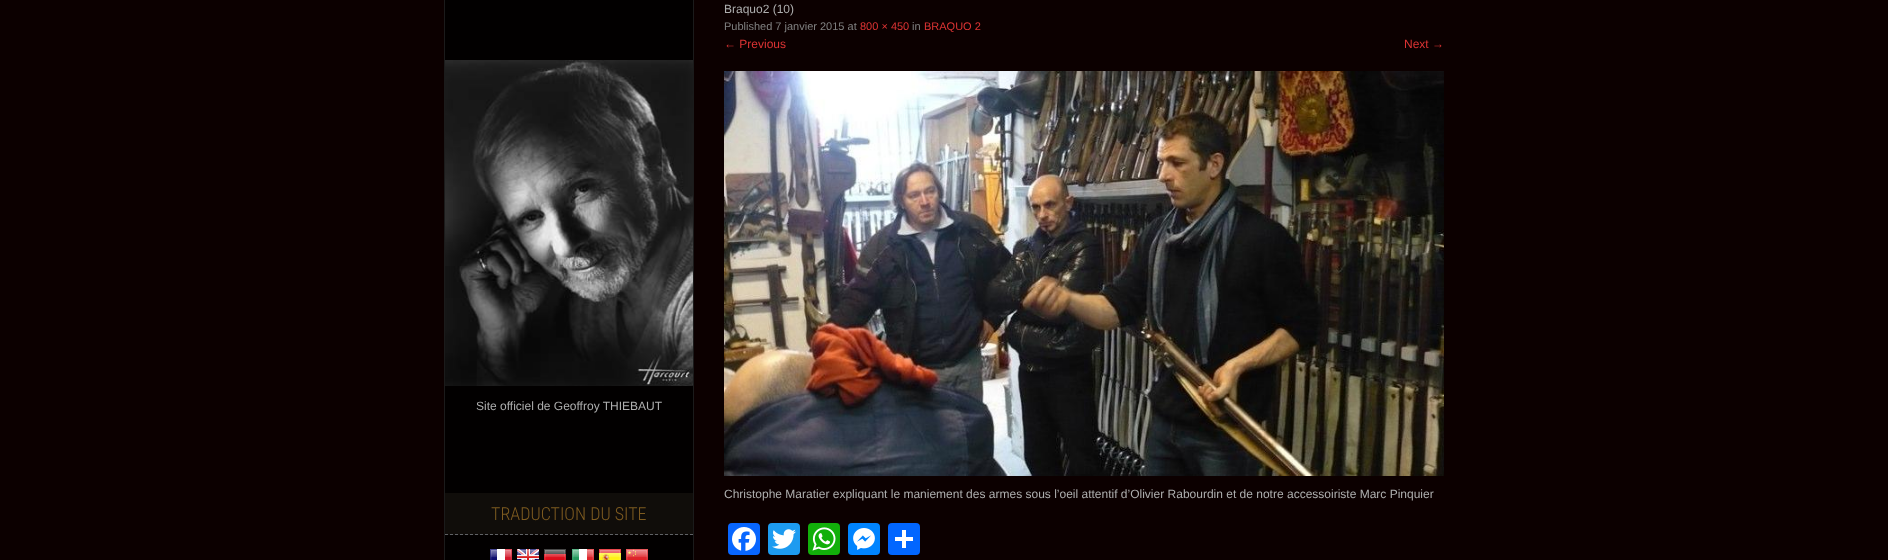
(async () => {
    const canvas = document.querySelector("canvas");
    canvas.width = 1888;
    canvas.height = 560;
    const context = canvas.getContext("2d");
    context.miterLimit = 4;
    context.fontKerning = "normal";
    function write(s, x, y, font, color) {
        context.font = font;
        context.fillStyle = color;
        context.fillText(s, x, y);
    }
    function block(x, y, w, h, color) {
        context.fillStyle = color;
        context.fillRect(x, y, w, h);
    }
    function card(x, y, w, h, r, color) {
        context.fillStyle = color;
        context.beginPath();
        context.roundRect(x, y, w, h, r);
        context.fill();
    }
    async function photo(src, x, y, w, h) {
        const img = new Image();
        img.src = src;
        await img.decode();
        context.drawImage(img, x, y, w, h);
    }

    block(0, 0, 1888, 560, "rgb(12, 0, 0)");
    block(693, 0, 1, 560, "rgb(27, 27, 27)");
    block(444, 0, 1, 560, "rgb(27, 27, 27)");
    block(445, 0, 248, 560, "rgb(2, 0, 0)");
    await photo("media/1.png", 445, 60, 248, 326);
    write("Site officiel de Geoffroy THIEBAUT", 476, 410, "12px Liberation Sans", "rgb(174, 174, 174)");
    block(445, 493, 248, 42, "rgb(16, 13, 10)");
    context.beginPath();
    context.moveTo(445, 534.5);
    context.lineTo(693, 534.5);
    context.strokeStyle = "rgb(96, 98, 102)";
    context.setLineDash([3, 2]);
    context.stroke();
    write("TRADUCTION DU SITE", 491, 520, "300 18px Roboto Condensed", "rgb(126, 91, 32)");
    await photo("media/2.png", 490, 549, 22, 11);
    await photo("media/3.png", 517, 549, 22, 11);
    await photo("media/4.png", 544, 549, 22, 11);
    await photo("media/5.png", 572, 549, 22, 11);
    await photo("media/6.png", 599, 549, 22, 11);
    await photo("media/7.png", 626, 549, 22, 11);
    write("Braquo2 (10)", 724, 13, "12px Liberation Sans", "rgb(174, 174, 174)");
    write("Published 7 janvier 2015 at", 724, 30, "11px Liberation Sans", "rgb(128, 128, 128)");
    write("800 × 450", 860, 30, "11px Liberation Sans", "rgb(221, 51, 51)");
    write("in", 912, 30, "11px Liberation Sans", "rgb(128, 128, 128)");
    write("BRAQUO 2", 924, 30, "11px Liberation Sans", "rgb(221, 51, 51)");
    write("← Previous", 724, 48, "12px Liberation Sans", "rgb(221, 51, 51)");
    write("Next →", 1404, 48, "12px Liberation Sans", "rgb(221, 51, 51)");
    await photo("media/8.png", 724, 71, 720, 405);
    write("Christophe Maratier expliquant le maniement des armes sous l’oeil attentif d’Olivier Rabourdin et de notre accessoiriste Marc Pinquier", 724, 498, "12px Liberation Sans", "rgb(174, 174, 174)");
    card(728, 523, 32, 32, 4, "rgb(8, 102, 255)");
    await photo("media/9.png", 732, 527, 24, 24);
    card(768, 523, 32, 32, 4, "rgb(29, 155, 240)");
    await photo("media/10.png", 772, 529, 24, 20);
    card(808, 523, 32, 32, 4, "rgb(18, 175, 10)");
    await photo("media/11.png", 812, 527, 24, 24);
    card(848, 523, 32, 32, 4, "rgb(0, 132, 255)");
    await photo("media/12.png", 853, 528, 22, 22);
    card(888, 523, 32, 32, 4, "rgb(1, 102, 255)");
    block(902, 530, 4, 18, "rgb(255, 255, 255)");
    block(895, 537, 18, 4, "rgb(255, 255, 255)");
})();
